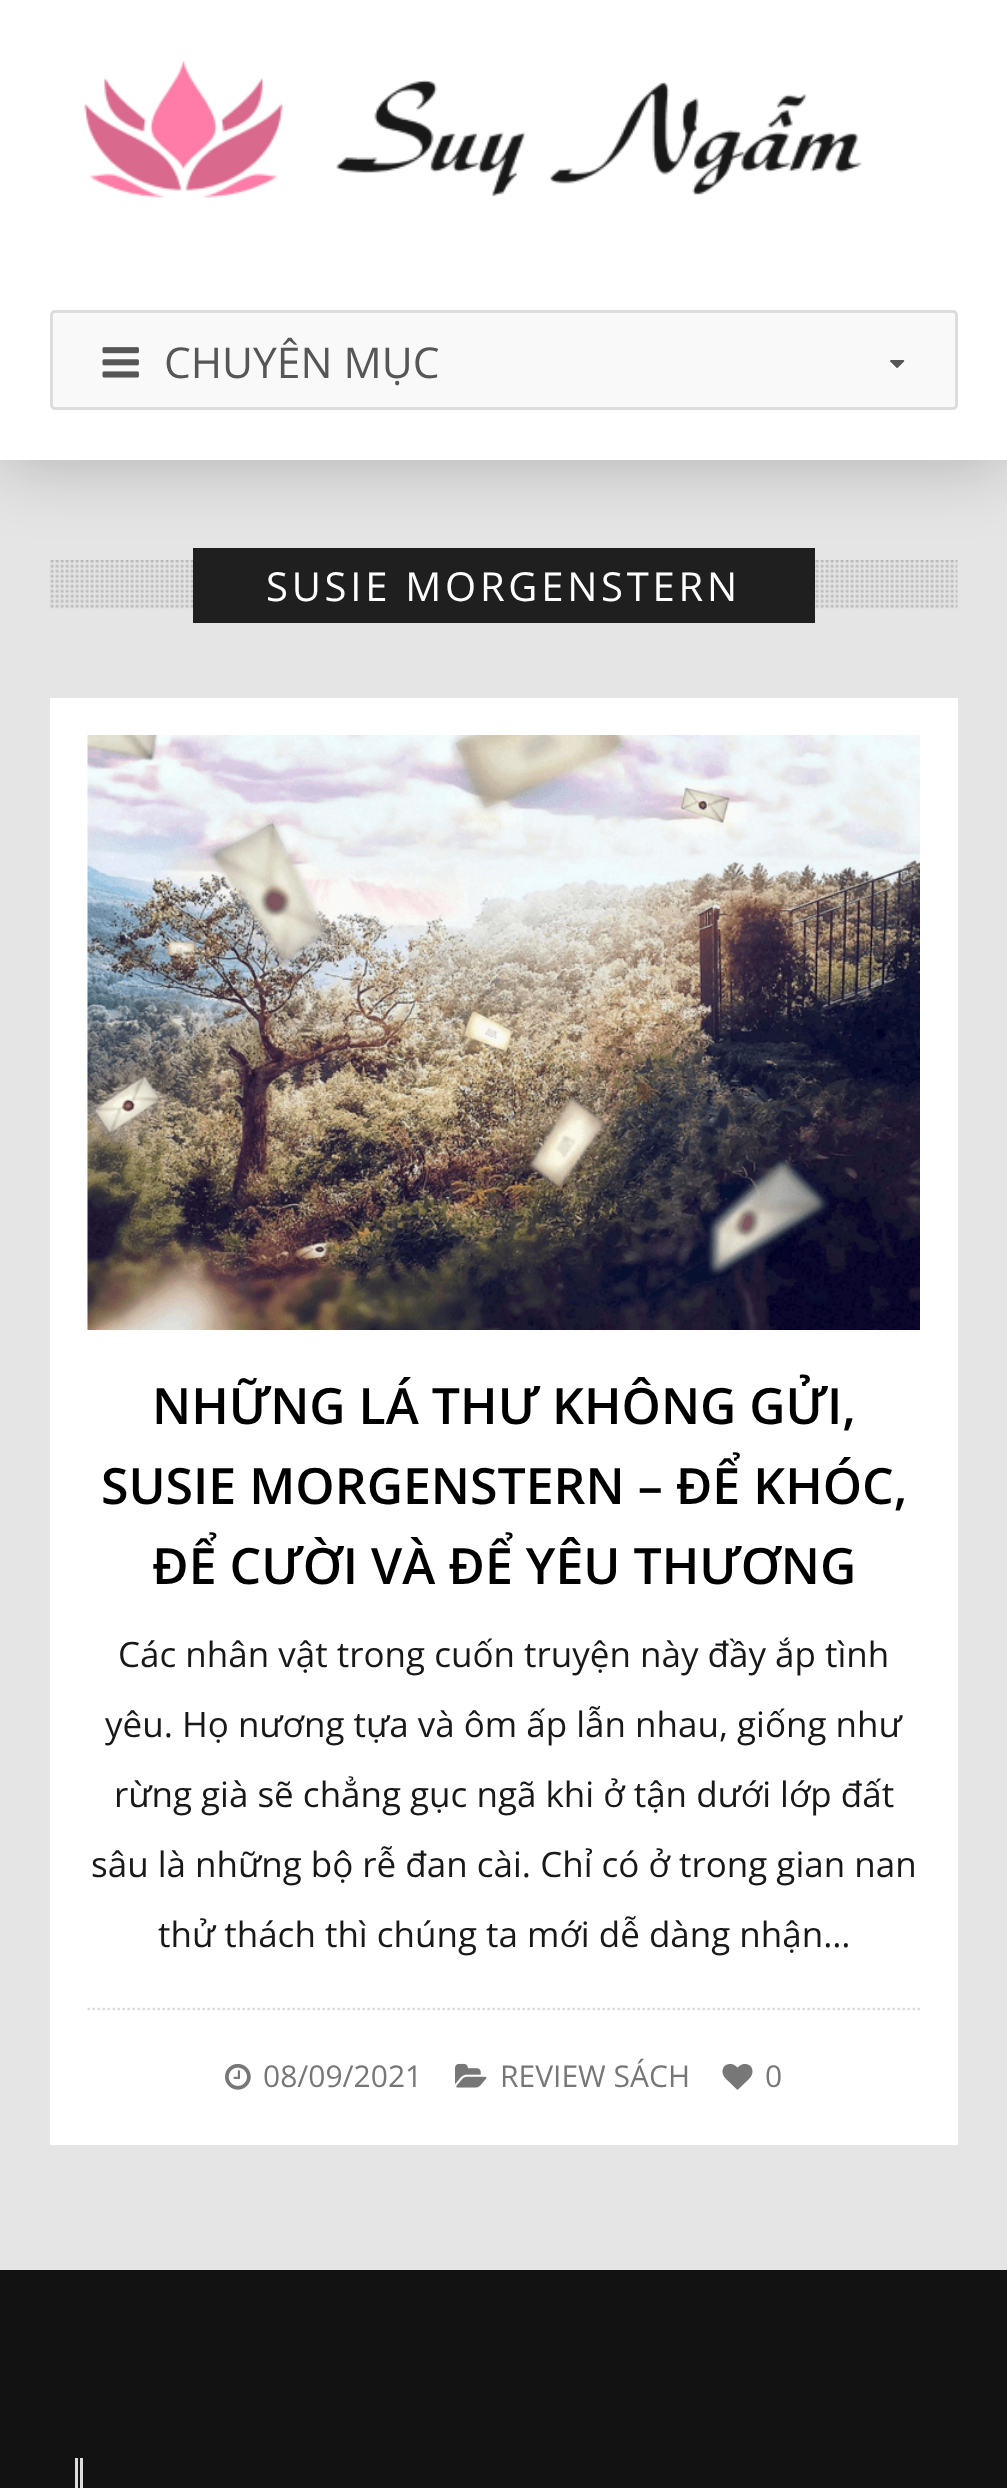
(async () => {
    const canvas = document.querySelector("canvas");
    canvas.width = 1007;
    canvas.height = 2488;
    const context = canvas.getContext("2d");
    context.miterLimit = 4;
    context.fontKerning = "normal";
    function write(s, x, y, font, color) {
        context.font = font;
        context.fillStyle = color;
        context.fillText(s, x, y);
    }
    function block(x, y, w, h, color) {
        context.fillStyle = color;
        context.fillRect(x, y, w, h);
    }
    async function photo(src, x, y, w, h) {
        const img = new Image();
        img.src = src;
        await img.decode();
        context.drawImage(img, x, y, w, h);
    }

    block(0, 0, 1007, 2488, "rgb(229, 229, 229)");
    context.fillStyle = "rgba(0, 0, 0, 0.25)";
    context.filter = "blur(37.5px)";
    context.beginPath();
    context.rect(0, 0, 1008, 460);
    context.fill();
    context.filter = "none";
    block(0, 0, 1007, 460, "rgb(255, 255, 255)");
    await photo("media/1.png", 84, 60, 778, 138);
    context.fillStyle = "rgb(249, 249, 249)";
    context.beginPath();
    context.roundRect(51.5, 311.5, 905, 97, 3.5);
    context.fill();
    context.strokeStyle = "rgb(221, 221, 221)";
    context.lineWidth = 3;
    context.stroke();
    await photo("media/2.png", 102, 347, 37, 31);
    write("CHUYÊN MỤC", 164, 378, "42.5px Open Sans", "rgb(86, 86, 86)");
    await photo("media/3.png", 890, 360, 15, 8);
    await photo("media/4.png", 50, 560, 908, 49);
    block(193, 548, 622, 75, "rgb(31, 31, 31)");
    context.letterSpacing = "3.75px";
    write("SUSIE MORGENSTERN", 266, 601, "40px Open Sans", "rgb(255, 255, 255)");
    block(50, 698, 908, 1447, "rgb(255, 255, 255)");
    await photo("media/5.png", 87, 735, 833, 595);
    context.letterSpacing = "0px";
    write("NHỮNG LÁ THƯ KHÔNG GỬI,", 152, 1424, "600 50px Open Sans", "rgb(0, 0, 0)");
    write("SUSIE MORGENSTERN – ĐỂ KHÓC,", 101, 1504, "600 50px Open Sans", "rgb(0, 0, 0)");
    write("ĐỂ CƯỜI VÀ ĐỂ YÊU THƯƠNG", 152, 1584, "600 50px Open Sans", "rgb(0, 0, 0)");
    write("Các nhân vật trong cuốn truyện này đầy ắp tình", 118, 1667, "35px Open Sans", "rgb(24, 24, 24)");
    write("yêu. Họ nương tựa và ôm ấp lẫn nhau, giống như", 105, 1737, "35px Open Sans", "rgb(24, 24, 24)");
    write("rừng già sẽ chẳng gục ngã khi ở tận dưới lớp đất", 114, 1807, "35px Open Sans", "rgb(24, 24, 24)");
    write("sâu là những bộ rễ đan cài. Chỉ có ở trong gian nan", 91, 1877, "35px Open Sans", "rgb(24, 24, 24)");
    write("thử thách thì chúng ta mới dễ dàng nhận…", 158, 1947, "35px Open Sans", "rgb(24, 24, 24)");
    context.beginPath();
    context.moveTo(87.5, 2009);
    context.lineTo(920, 2009);
    context.lineWidth = 2.5;
    context.setLineDash([2.5, 2.5]);
    context.stroke();
    await photo("media/6.png", 225, 2063, 26, 27);
    write("08/09/2021", 263, 2087, "30px Open Sans", "rgb(119, 119, 119)");
    await photo("media/7.png", 455, 2063, 32, 25);
    write("REVIEW SÁCH", 500, 2087, "30px Open Sans", "rgb(119, 119, 119)");
    await photo("media/8.png", 722, 2063, 31, 27);
    write("0", 765, 2087, "30px Open Sans", "rgb(119, 119, 119)");
    block(0, 2270, 1007, 218, "rgb(18, 18, 18)");
    block(75, 2458, 3, 30, "rgb(221, 221, 221)");
    block(80, 2458, 3, 30, "rgb(221, 221, 221)");
})();
